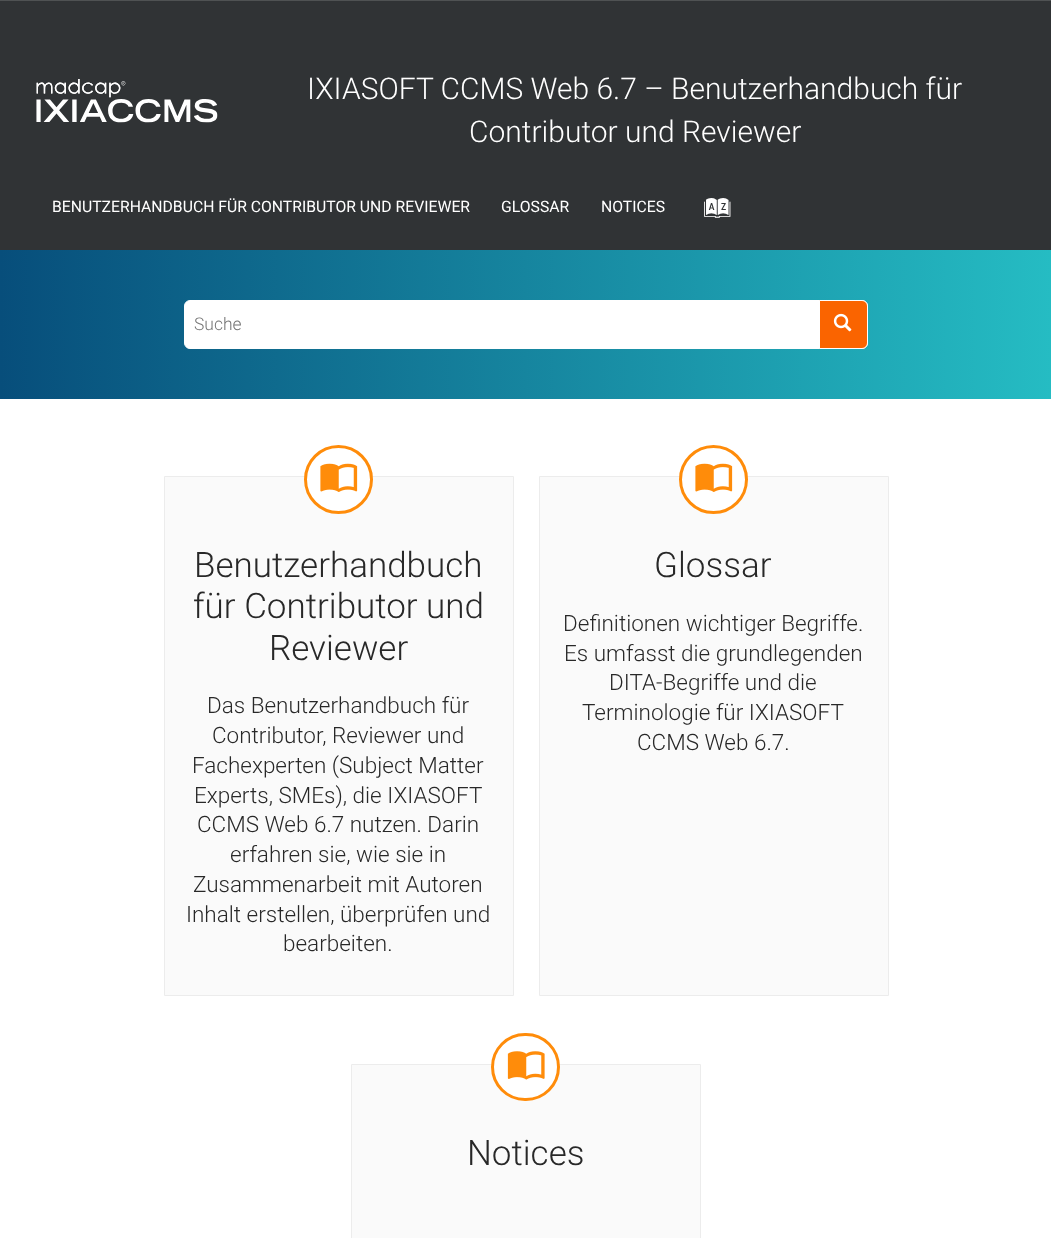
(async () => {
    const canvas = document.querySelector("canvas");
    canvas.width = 1051;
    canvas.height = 1238;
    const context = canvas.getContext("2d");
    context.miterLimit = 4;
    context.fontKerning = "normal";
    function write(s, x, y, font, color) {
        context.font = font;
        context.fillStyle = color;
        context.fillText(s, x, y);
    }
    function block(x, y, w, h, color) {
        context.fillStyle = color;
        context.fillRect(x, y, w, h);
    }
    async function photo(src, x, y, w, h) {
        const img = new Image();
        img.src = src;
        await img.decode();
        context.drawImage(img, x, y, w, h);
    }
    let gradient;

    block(0, 0, 1051, 1238, "rgb(255, 255, 255)");
    block(0, 1, 1051, 249, "rgb(48, 51, 53)");
    block(0, 0, 1051, 1, "rgb(79, 82, 83)");
    await photo("media/1.png", 36, 79, 182, 44);
    write("IXIASOFT CCMS Web 6.7 – Benutzerhandbuch für", 307, 99, "300 30px Roboto", "rgb(255, 255, 255)");
    write("Contributor und Reviewer", 469, 142, "300 30px Roboto", "rgb(255, 255, 255)");
    write("BENUTZERHANDBUCH FÜR CONTRIBUTOR UND REVIEWER", 52, 212, "15.75px Roboto", "rgb(255, 255, 255)");
    write("GLOSSAR", 501, 212, "15.75px Roboto", "rgb(255, 255, 255)");
    write("NOTICES", 601, 212, "15.75px Roboto", "rgb(255, 255, 255)");
    write("a", 707, 221, "28px Oxygen", "rgb(255, 255, 255)");
    gradient = context.createLinearGradient(0, 324, 1051, 324);
    gradient.addColorStop(0, "rgb(7, 78, 123)");
    gradient.addColorStop(1, "rgb(37, 188, 195)");
    context.fillStyle = gradient;
    context.fillRect(0, 250, 1051, 149);
    context.fillStyle = "rgb(255, 255, 255)";
    context.beginPath();
    context.roundRect(184.5, 300.5, 683, 48, 5.5);
    context.fill();
    context.strokeStyle = "rgb(255, 255, 255)";
    context.stroke();
    write("Suche", 194, 330, "300 17.5px Roboto", "rgb(117, 117, 117)");
    context.fillStyle = "rgb(250, 100, 0)";
    context.beginPath();
    context.roundRect(819.5, 300.5, 48, 48, [0, 5.5, 5.5, 0]);
    context.fill();
    context.stroke();
    await photo("media/2.png", 833, 313, 19, 19);
    context.fillStyle = "rgb(250, 250, 250)";
    context.beginPath();
    context.rect(164.5, 476.5, 349, 519);
    context.fill();
    context.strokeStyle = "rgb(236, 236, 236)";
    context.stroke();
    context.fillStyle = "rgb(255, 255, 255)";
    context.beginPath();
    context.arc(338.5, 479.5, 33, 0, Math.PI * 2);
    context.fill();
    context.strokeStyle = "rgb(255, 140, 10)";
    context.lineWidth = 3;
    context.stroke();
    await photo("media/3.png", 320, 463, 38, 29);
    write("Benutzerhandbuch", 194, 577, "300 35px Roboto", "rgb(40, 40, 40)");
    write("für Contributor und", 193, 618, "300 35px Roboto", "rgb(40, 40, 40)");
    write("Reviewer", 269, 660, "300 35px Roboto", "rgb(40, 40, 40)");
    write("Das Benutzerhandbuch für", 207, 713, "300 22.5px Roboto", "rgb(40, 40, 40)");
    write("Contributor, Reviewer und", 212, 743, "300 22.5px Roboto", "rgb(40, 40, 40)");
    write("Fachexperten (Subject Matter", 192, 773, "300 22.5px Roboto", "rgb(40, 40, 40)");
    write("Experts, SMEs), die IXIASOFT", 194, 803, "300 22.5px Roboto", "rgb(40, 40, 40)");
    write("CCMS Web 6.7 nutzen. Darin", 197, 832, "300 22.5px Roboto", "rgb(40, 40, 40)");
    write("erfahren sie, wie sie in", 230, 862, "300 22.5px Roboto", "rgb(40, 40, 40)");
    write("Zusammenarbeit mit Autoren", 193, 892, "300 22.5px Roboto", "rgb(40, 40, 40)");
    write("Inhalt erstellen, überprüfen und", 186, 922, "300 22.5px Roboto", "rgb(40, 40, 40)");
    write("bearbeiten.", 283, 951, "300 22.5px Roboto", "rgb(40, 40, 40)");
    context.fillStyle = "rgb(250, 250, 250)";
    context.beginPath();
    context.rect(539.5, 476.5, 349, 519);
    context.fill();
    context.strokeStyle = "rgb(236, 236, 236)";
    context.lineWidth = 1;
    context.stroke();
    context.fillStyle = "rgb(255, 255, 255)";
    context.beginPath();
    context.arc(713.5, 479.5, 33, 0, Math.PI * 2);
    context.fill();
    context.strokeStyle = "rgb(255, 140, 10)";
    context.lineWidth = 3;
    context.stroke();
    await photo("media/3.png", 695, 463, 38, 29);
    write("Glossar", 654, 577, "300 35px Roboto", "rgb(40, 40, 40)");
    write("Definitionen wichtiger Begriffe.", 563, 631, "300 22.5px Roboto", "rgb(40, 40, 40)");
    write("Es umfasst die grundlegenden", 564, 661, "300 22.5px Roboto", "rgb(40, 40, 40)");
    write("DITA-Begriffe und die", 609, 690, "300 22.5px Roboto", "rgb(40, 40, 40)");
    write("Terminologie für IXIASOFT", 582, 720, "300 22.5px Roboto", "rgb(40, 40, 40)");
    write("CCMS Web 6.7.", 637, 750, "300 22.5px Roboto", "rgb(40, 40, 40)");
    context.fillStyle = "rgb(250, 250, 250)";
    context.beginPath();
    context.rect(351.5, 1064.5, 349, 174);
    context.fill();
    context.strokeStyle = "rgb(236, 236, 236)";
    context.lineWidth = 1;
    context.stroke();
    context.fillStyle = "rgb(255, 255, 255)";
    context.beginPath();
    context.roundRect(492.5, 1034.5, 66, 65, 32.5);
    context.fill();
    context.strokeStyle = "rgb(255, 140, 10)";
    context.lineWidth = 3;
    context.stroke();
    await photo("media/4.png", 507, 1051, 38, 29);
    write("Notices", 467, 1165, "300 35px Roboto", "rgb(40, 40, 40)");
})();
